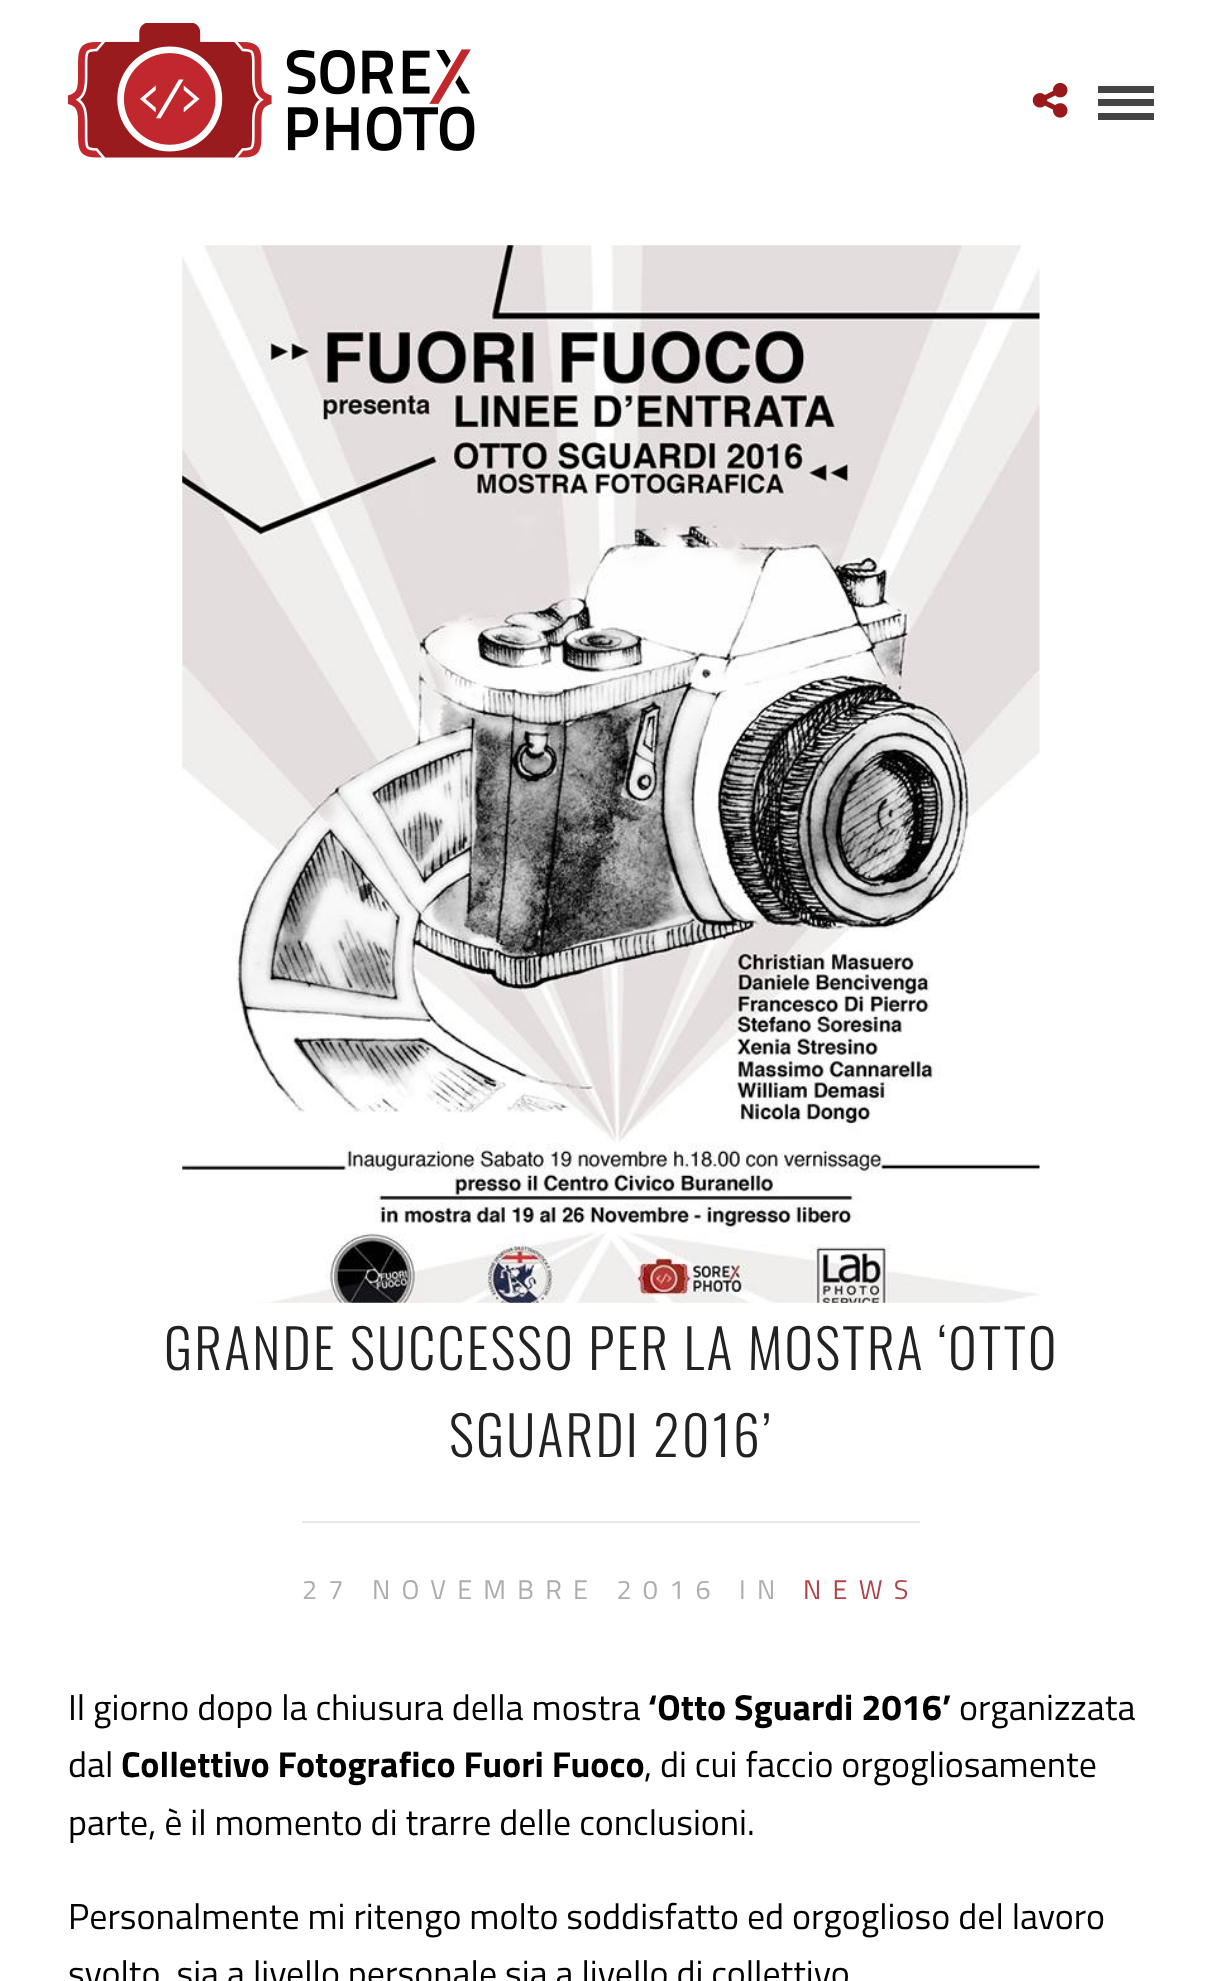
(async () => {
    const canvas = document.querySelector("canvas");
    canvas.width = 1220;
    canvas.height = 1981;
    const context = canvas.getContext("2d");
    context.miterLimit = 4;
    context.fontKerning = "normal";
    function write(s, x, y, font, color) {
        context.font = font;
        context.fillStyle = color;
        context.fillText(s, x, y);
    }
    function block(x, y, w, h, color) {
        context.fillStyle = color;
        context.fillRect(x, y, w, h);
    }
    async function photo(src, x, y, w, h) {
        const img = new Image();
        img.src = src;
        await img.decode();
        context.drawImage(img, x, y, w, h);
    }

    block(0, 0, 1220, 1981, "rgb(255, 255, 255)");
    await photo("media/1.png", 68, 23, 407, 135);
    await photo("media/2.png", 1032, 82, 36, 36);
    block(1098, 86, 56, 7, "rgb(68, 68, 68)");
    block(1098, 99, 56, 7, "rgb(68, 68, 68)");
    block(1098, 113, 56, 7, "rgb(68, 68, 68)");
    await photo("media/3.png", 182, 245, 858, 1058);
    context.letterSpacing = "2.25px";
    write("GRANDE SUCCESSO PER LA MOSTRA ‘OTTO", 164, 1370, "300 54px Oswald", "rgb(34, 34, 34)");
    write("SGUARDI 2016’", 449, 1457, "300 54px Oswald", "rgb(34, 34, 34)");
    block(302, 1521, 618, 2, "rgb(231, 231, 231)");
    context.letterSpacing = "11.25px";
    write("27 NOVEMBRE 2016 IN", 302, 1599, "27px Titillium Web", "rgb(173, 173, 173)");
    write("NEWS", 803, 1599, "27px Titillium Web", "rgb(174, 69, 73)");
    context.letterSpacing = "0px";
    write("Il giorno dopo la chiusura della mostra", 68, 1720, "36px Titillium Web", "rgb(0, 0, 0)");
    write("‘Otto Sguardi 2016’", 648, 1720, "bold 36px Titillium Web", "rgb(0, 0, 0)");
    write("organizzata", 959, 1720, "36px Titillium Web", "rgb(0, 0, 0)");
    write("dal", 68, 1777, "36px Titillium Web", "rgb(0, 0, 0)");
    write("Collettivo Fotografico Fuori Fuoco", 121, 1777, "bold 36px Titillium Web", "rgb(0, 0, 0)");
    write(", di cui faccio orgogliosamente", 644, 1777, "36px Titillium Web", "rgb(0, 0, 0)");
    write("parte, è il momento di trarre delle conclusioni.", 68, 1835, "36px Titillium Web", "rgb(0, 0, 0)");
    write("Personalmente mi ritengo molto soddisfatto ed orgoglioso del lavoro", 68, 1929, "36px Titillium Web", "rgb(0, 0, 0)");
    write("svolto, sia a livello personale sia a livello di collettivo", 68, 1986, "36px Titillium Web", "rgb(0, 0, 0)");
})();
